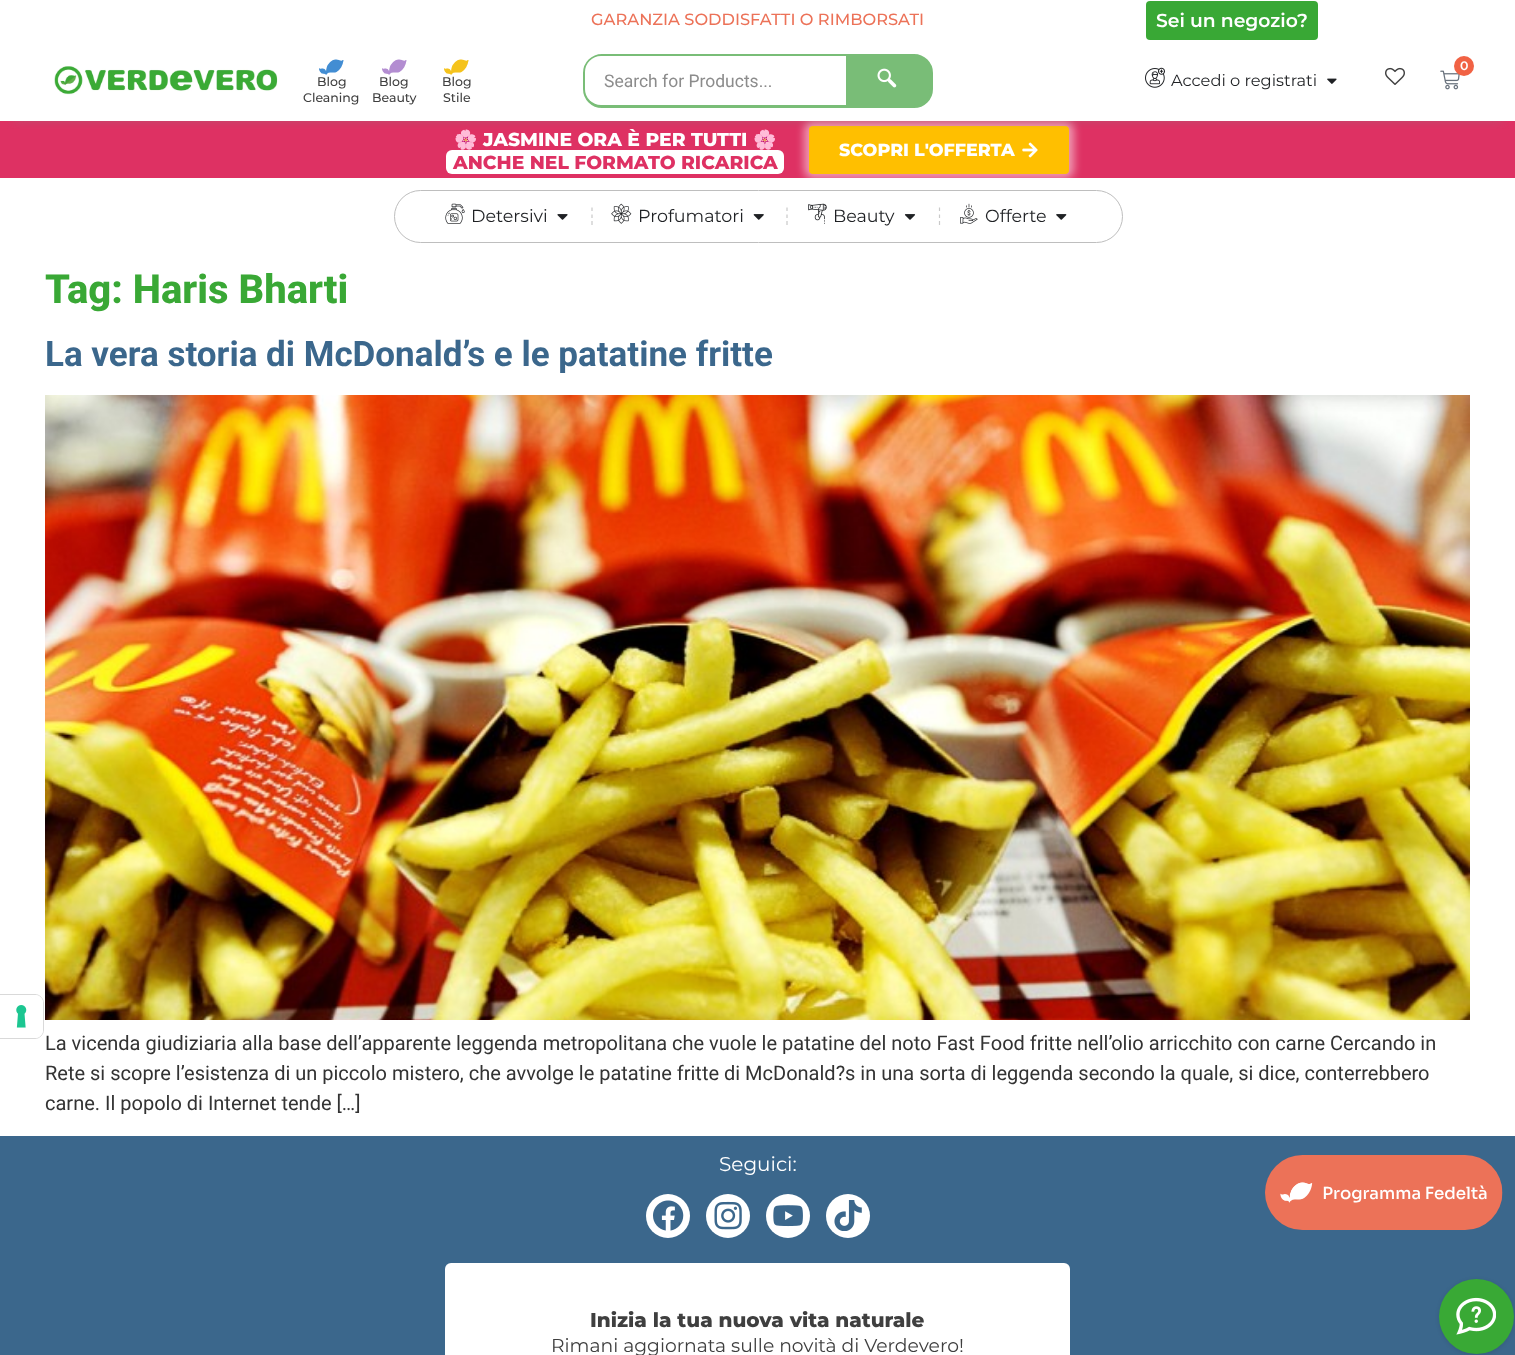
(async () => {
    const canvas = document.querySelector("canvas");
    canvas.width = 1515;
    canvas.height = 1355;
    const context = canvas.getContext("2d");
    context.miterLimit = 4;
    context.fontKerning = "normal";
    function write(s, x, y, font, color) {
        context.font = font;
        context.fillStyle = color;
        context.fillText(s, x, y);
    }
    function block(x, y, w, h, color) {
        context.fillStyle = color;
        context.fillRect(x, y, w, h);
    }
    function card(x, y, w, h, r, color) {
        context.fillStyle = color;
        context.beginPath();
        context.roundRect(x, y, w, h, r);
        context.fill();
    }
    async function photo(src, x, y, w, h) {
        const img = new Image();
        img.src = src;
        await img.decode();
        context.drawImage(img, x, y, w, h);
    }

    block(0, 0, 1515, 1355, "rgb(255, 255, 255)");
    block(0, 121, 1515, 57, "rgb(222, 49, 99)");
    context.fillStyle = "rgba(255, 255, 255, 0.5)";
    context.filter = "blur(4.5px)";
    context.beginPath();
    context.roundRect(804, 121, 270, 58, 9);
    context.fill();
    context.filter = "none";
    card(809, 126, 260, 48, 4, "rgb(255, 191, 0)");
    context.save();
    context.beginPath();
    context.rect(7, 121, 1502, 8);
    context.clip();
    context.fillStyle = "rgba(131, 131, 131, 0.5)";
    context.filter = "blur(6px)";
    context.beginPath();
    context.rect(13, 63, 1490, 56);
    context.fill();
    context.filter = "none";
    context.restore();
    card(1146, 1, 172, 39, 4, "rgb(57, 168, 53)");
    write("Sei un negozio?", 1156, 27, "600 18.75px Montserrat", "rgb(255, 255, 255)");
    await photo("media/1.png", 54, 66, 224, 29);
    write("%", 319, 76, "25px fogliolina", "rgb(66, 141, 211)");
    write("Blog", 317, 86, "500 12.5px Montserrat", "rgb(63, 63, 63)");
    write("Cleaning", 303, 102, "500 12.5px Montserrat", "rgb(63, 63, 63)");
    write("%", 382, 76, "25px fogliolina", "rgb(179, 141, 209)");
    write("Blog", 379, 86, "500 12.5px Montserrat", "rgb(63, 63, 63)");
    write("Beauty", 372, 102, "500 12.5px Montserrat", "rgb(63, 63, 63)");
    write("%", 444, 76, "25px fogliolina", "rgb(245, 195, 28)");
    write("Blog", 442, 86, "500 12.5px Montserrat", "rgb(63, 63, 63)");
    write("Stile", 443, 102, "500 12.5px Montserrat", "rgb(63, 63, 63)");
    context.fillStyle = "rgb(121, 189, 119)";
    context.beginPath();
    context.roundRect(584.5, 55.5, 347, 51, 17.5);
    context.fill();
    context.strokeStyle = "rgb(121, 189, 119)";
    context.lineWidth = 3;
    context.stroke();
    context.fillStyle = "rgb(255, 255, 255)";
    context.beginPath();
    context.roundRect(585, 56, 261, 49, [16, 0, 0, 16]);
    context.fill();
    write("Search for Products...", 604, 87, "17.5px Roboto", "rgb(140, 140, 140)");
    await photo("media/2.png", 877, 68, 20, 20);
    await photo("media/3.png", 1440, 70, 20, 20);
    context.fillStyle = "rgb(241, 98, 68)";
    context.beginPath();
    context.arc(1464, 66, 10, 0, Math.PI * 2);
    context.fill();
    write("0", 1460, 70, "600 12.5px Montserrat", "rgb(255, 255, 255)");
    await photo("media/4.png", 1145, 67, 20, 21);
    write("Accedi o registrati", 1171, 86, "16.25px Montserrat", "rgb(31, 33, 36)");
    await photo("media/5.png", 1327, 78, 10, 6);
    await photo("media/6.png", 1385, 67, 20, 18);
    write("GARANZIA SODDISFATTI O RIMBORSATI", 591, 25, "500 16.25px Montserrat", "rgb(236, 114, 88)");
    write("🌸", 454, 146, "bold 18.75px Noto Color Emoji", "rgb(255, 255, 255)");
    write("JASMINE ORA È PER TUTTI", 483, 146, "800 18.75px Montserrat", "rgb(255, 255, 255)");
    write("🌸", 753, 146, "bold 18.75px Noto Color Emoji", "rgb(255, 255, 255)");
    card(446, 150, 338, 24, 6, "rgb(255, 255, 255)");
    write("ANCHE NEL FORMATO RICARICA", 453, 169, "800 18.75px Montserrat", "rgb(222, 49, 99)");
    write("SCOPRI L'OFFERTA", 839, 156, "800 17.5px Montserrat", "rgb(255, 255, 255)");
    await photo("media/7.png", 1022, 142, 16, 16);
    context.beginPath();
    context.roundRect(394.5, 190.5, 728, 52, 26);
    context.strokeStyle = "rgb(190, 190, 190)";
    context.lineWidth = 1;
    context.stroke();
    await photo("media/8.png", 445, 203, 20, 21);
    write("Detersivi", 471, 222, "17.5px Montserrat", "rgb(31, 33, 36)");
    await photo("media/9.png", 557, 214, 11, 6);
    context.beginPath();
    context.moveTo(592, 207.5);
    context.lineTo(592, 211);
    context.moveTo(592, 214.5);
    context.lineTo(592, 218);
    context.moveTo(592, 221);
    context.lineTo(592, 225);
    context.strokeStyle = "rgb(201, 201, 201)";
    context.lineWidth = 1.2;
    context.stroke();
    await photo("media/10.png", 611, 203, 21, 21);
    write("Profumatori", 638, 222, "17.5px Montserrat", "rgb(31, 33, 36)");
    await photo("media/11.png", 753, 214, 11, 6);
    context.beginPath();
    context.moveTo(787, 207.5);
    context.lineTo(787, 211);
    context.moveTo(787, 214.5);
    context.lineTo(787, 218);
    context.moveTo(787, 221);
    context.lineTo(787, 225);
    context.stroke();
    await photo("media/12.png", 808, 203, 19, 21);
    write("Beauty", 833, 222, "17.5px Montserrat", "rgb(31, 33, 36)");
    await photo("media/13.png", 904, 214, 12, 6);
    context.beginPath();
    context.moveTo(939.5, 207.5);
    context.lineTo(939.5, 211);
    context.moveTo(939.5, 214.5);
    context.lineTo(939.5, 218);
    context.moveTo(939.5, 221);
    context.lineTo(939.5, 225);
    context.stroke();
    await photo("media/14.png", 960, 203, 18, 21);
    write("Offerte", 985, 222, "17.5px Montserrat", "rgb(31, 33, 36)");
    await photo("media/15.png", 1056, 214, 11, 6);
    context.beginPath();
    context.moveTo(-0.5, 994.5);
    context.lineTo(35, 994.5);
    context.bezierCurveTo(39.5, 994.5, 43.5, 998.5, 43.5, 1003);
    context.lineTo(43.5, 1030);
    context.bezierCurveTo(43.5, 1034.5, 39.5, 1038.5, 35, 1038.5);
    context.lineTo(-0.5, 1038.5);
    context.closePath();
    context.strokeStyle = "rgb(217, 217, 217)";
    context.lineWidth = 1;
    context.stroke();
    context.fillStyle = "rgb(255, 255, 255)";
    context.beginPath();
    context.roundRect(0, 995, 43, 43, [0, 8, 8, 0]);
    context.fill();
    await photo("media/16.png", 16, 1005, 11, 23);
    write("Tag: Haris Bharti", 45, 303, "800 40px Roboto", "rgb(57, 168, 53)");
    write("La vera storia di McDonald’s e le patatine fritte", 45, 366, "bold 35px Roboto", "rgb(59, 103, 140)");
    await photo("media/17.png", 45, 395, 1425, 625);
    write("La vicenda giudiziaria alla base dell’apparente leggenda metropolitana che vuole le patatine del noto Fast Food fritte nell’olio arricchito con carne Cercando in", 45, 1050, "20px Roboto", "rgb(51, 51, 51)");
    write("Rete si scopre l’esistenza di un piccolo mistero, che avvolge le patatine fritte di McDonald?s in una sorta di leggenda secondo la quale, si dice, conterrebbero", 45, 1080, "20px Roboto", "rgb(51, 51, 51)");
    write("carne. Il popolo di Internet tende […]", 45, 1110, "20px Roboto", "rgb(51, 51, 51)");
    block(0, 1136, 1515, 219, "rgb(59, 103, 140)");
    write("Seguici:", 719, 1171, "20px Montserrat", "rgb(255, 255, 255)");
    context.beginPath();
    context.arc(668, 1216, 22, 0, Math.PI * 2);
    context.fill();
    await photo("media/18.png", 653, 1200, 31, 31);
    context.beginPath();
    context.arc(728, 1216, 22, 0, Math.PI * 2);
    context.fill();
    await photo("media/19.png", 714, 1201, 28, 29);
    context.beginPath();
    context.arc(788, 1216, 22, 0, Math.PI * 2);
    context.fill();
    await photo("media/20.png", 773, 1205, 30, 22);
    context.beginPath();
    context.arc(848, 1216, 22, 0, Math.PI * 2);
    context.fill();
    await photo("media/21.png", 834, 1200, 28, 31);
    card(445, 1263, 625, 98, 6, "rgb(255, 255, 255)");
    write("Inizia la tua nuova vita naturale", 590, 1327, "800 20px Montserrat", "rgb(63, 63, 63)");
    write("Rimani aggiornata sulle novità di Verdevero!", 551, 1352, "18.75px Montserrat", "rgb(63, 63, 63)");
    await photo("media/22.png", 1265, 1155, 238, 75);
    context.fillStyle = "rgba(0, 0, 0, 0.1)";
    context.filter = "blur(2px)";
    context.beginPath();
    context.roundRect(1439, 1280, 75, 75, 37.5);
    context.fill();
    context.filter = "none";
    context.fillStyle = "rgb(57, 169, 53)";
    context.beginPath();
    context.arc(1476.5, 1316.5, 37.5, 0, Math.PI * 2);
    context.fill();
    await photo("media/23.png", 1456, 1297, 40, 38);
})();
